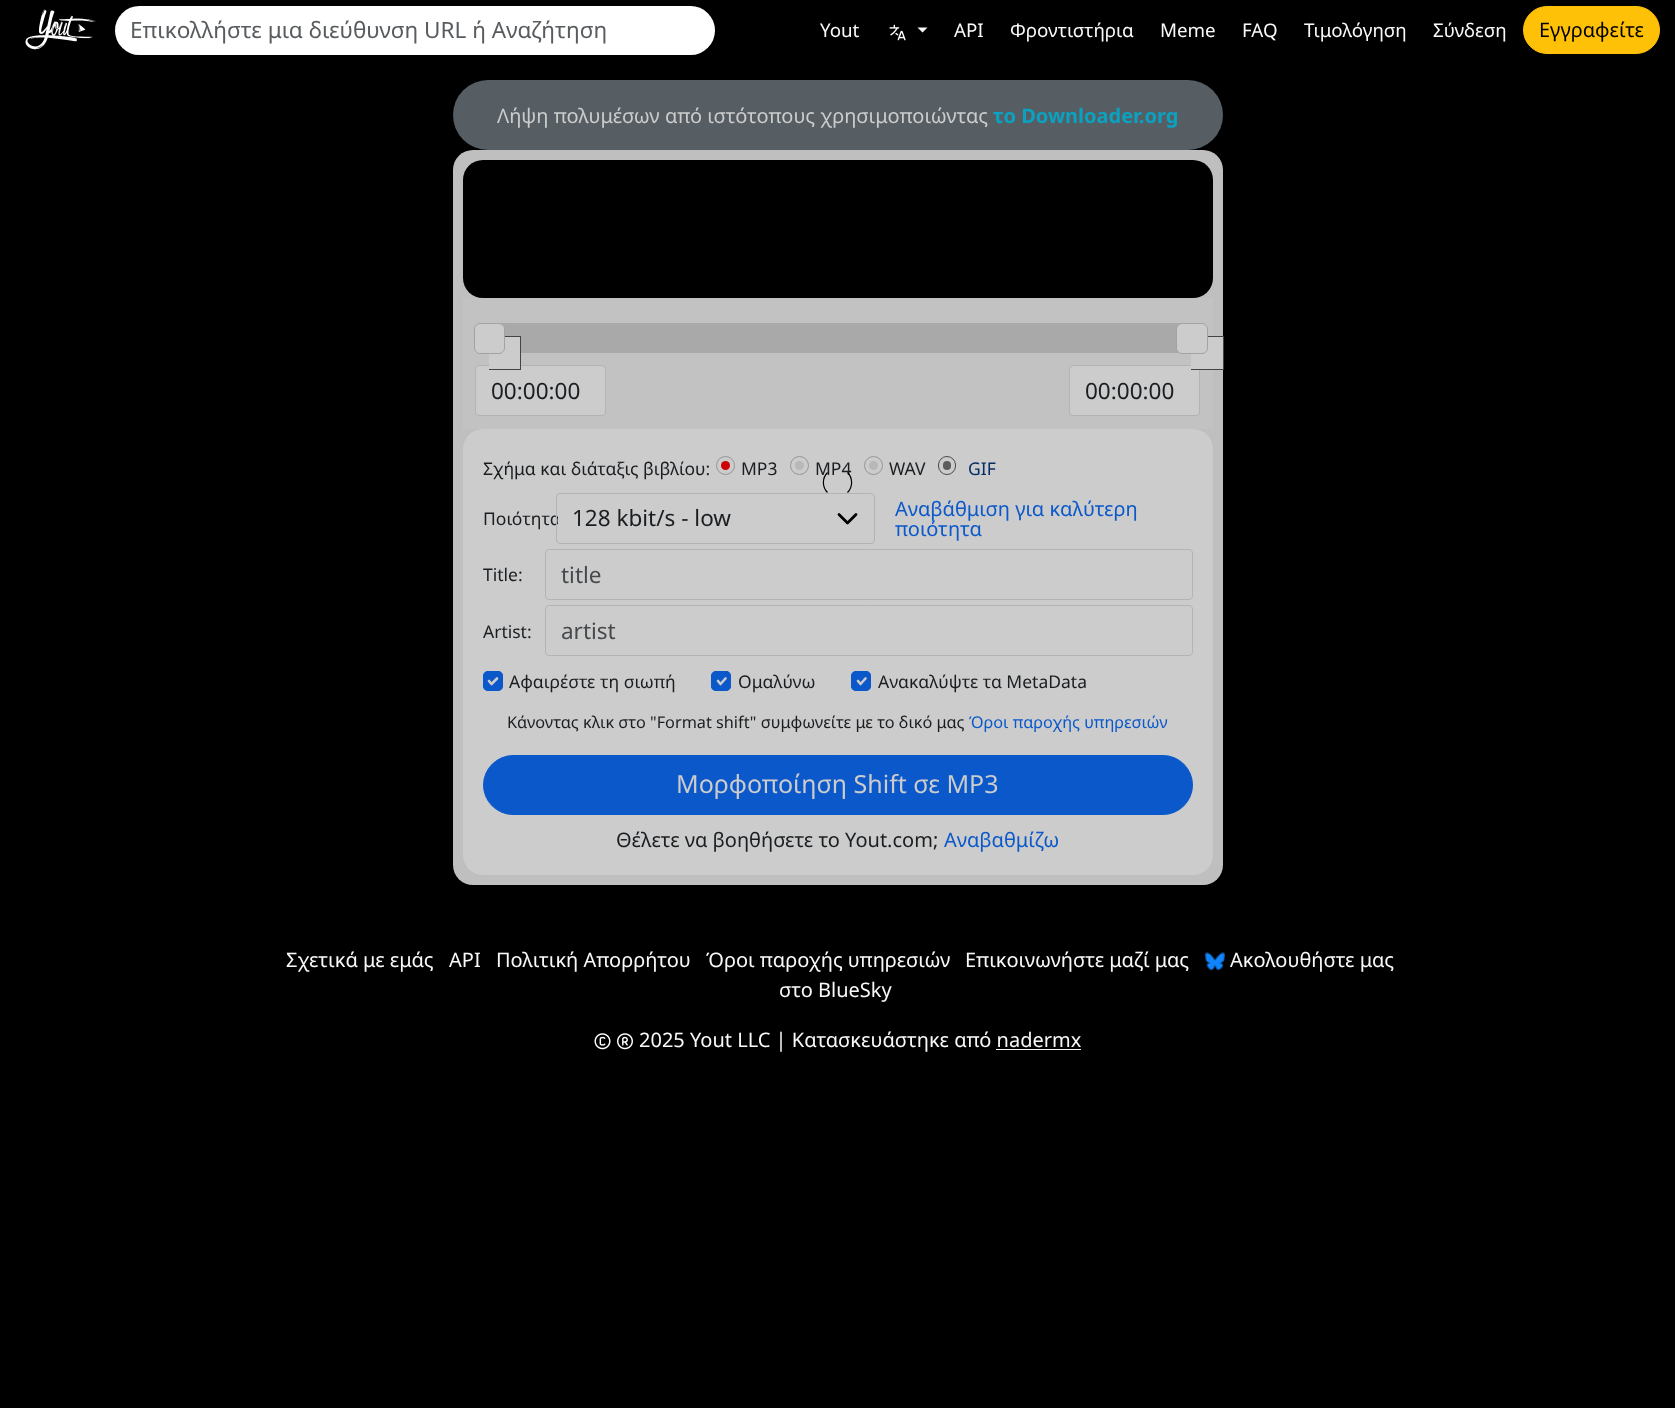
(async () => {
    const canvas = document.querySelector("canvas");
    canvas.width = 1675;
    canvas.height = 1408;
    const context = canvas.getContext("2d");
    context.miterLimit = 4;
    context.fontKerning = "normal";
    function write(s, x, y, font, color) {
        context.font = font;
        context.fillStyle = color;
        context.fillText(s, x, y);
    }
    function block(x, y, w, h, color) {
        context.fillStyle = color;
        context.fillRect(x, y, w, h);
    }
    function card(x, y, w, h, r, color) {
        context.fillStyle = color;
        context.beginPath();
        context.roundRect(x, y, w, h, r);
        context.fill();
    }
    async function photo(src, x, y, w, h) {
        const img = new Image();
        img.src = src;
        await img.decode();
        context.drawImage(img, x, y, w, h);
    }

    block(0, 0, 1675, 1408, "rgb(0, 0, 0)");
    await photo("media/1.png", 25, 9, 71, 41);
    card(115, 6, 600, 49, 24.5, "rgb(255, 255, 255)");
    write("Επικολλήστε μια διεύθυνση URL ή Αναζήτηση", 130, 38, "22.5px Noto Sans", "rgb(89, 92, 95)");
    write("Yout", 820, 37, "18.75px Noto Sans", "rgb(248, 249, 250)");
    await photo("media/2.png", 889, 24, 17, 17);
    context.beginPath();
    context.moveTo(917.5, 27.5);
    context.lineTo(927.5, 27.5);
    context.lineTo(922.5, 32.5);
    context.closePath();
    context.fill();
    write("API", 954, 37, "18.75px Noto Sans", "rgb(248, 249, 250)");
    write("Φροντιστήρια", 1010, 37, "18.75px Noto Sans", "rgb(248, 249, 250)");
    write("Meme", 1160, 37, "18.75px Noto Sans", "rgb(248, 249, 250)");
    write("FAQ", 1242, 37, "18.75px Noto Sans", "rgb(248, 249, 250)");
    write("Τιμολόγηση", 1304, 37, "18.75px Noto Sans", "rgb(248, 249, 250)");
    write("Σύνδεση", 1433, 37, "18.75px Noto Sans", "rgb(248, 249, 250)");
    context.fillStyle = "rgb(255, 193, 7)";
    context.beginPath();
    context.roundRect(1523.5, 6.5, 136, 47, 23.5);
    context.fill();
    context.strokeStyle = "rgb(255, 193, 7)";
    context.stroke();
    write("Εγγραφείτε", 1539, 37, "20px Noto Sans", "rgb(0, 0, 0)");
    card(453, 80, 770, 70, 35, "rgb(86, 94, 100)");
    write("Λήψη πολυμέσων από ιστότοπους χρησιμοποιώντας", 497, 123, "20px Noto Sans", "rgb(204, 204, 204)");
    write("το Downloader.org", 993, 123, "bold 20px Noto Sans", "rgb(10, 162, 192)");
    card(453, 150, 770, 735, 20, "rgb(191, 191, 191)");
    card(463, 160, 750, 138, 20, "rgb(0, 0, 0)");
    block(463, 298, 750, 131, "rgb(194, 194, 194)");
    block(499, 323, 683, 30, "rgb(169, 169, 169)");
    card(476, 366, 129, 49, 2.5, "rgb(204, 204, 204)");
    context.beginPath();
    context.roundRect(475.5, 365.5, 130, 50, 3.5);
    context.strokeStyle = "rgb(178, 181, 184)";
    context.stroke();
    block(489, 337, 31, 29, "rgb(204, 204, 204)");
    block(505, 336, 16, 1, "rgb(68, 68, 68)");
    block(520, 336, 1, 34, "rgb(68, 68, 68)");
    block(489, 369, 32, 1, "rgb(68, 68, 68)");
    context.fillStyle = "rgb(204, 204, 204)";
    context.beginPath();
    context.roundRect(474.5, 323.5, 30, 30, 5.5);
    context.fill();
    context.strokeStyle = "rgb(163, 163, 163)";
    context.stroke();
    card(1070, 366, 129, 49, 2.5, "rgb(204, 204, 204)");
    context.beginPath();
    context.roundRect(1069.5, 365.5, 130, 50, 3.5);
    context.strokeStyle = "rgb(178, 181, 184)";
    context.stroke();
    block(1191, 337, 32, 32, "rgb(204, 204, 204)");
    block(1208, 336, 16, 1, "rgb(68, 68, 68)");
    block(1223, 336, 1, 34, "rgb(68, 68, 68)");
    block(1191, 369, 33, 1, "rgb(68, 68, 68)");
    context.fillStyle = "rgb(204, 204, 204)";
    context.beginPath();
    context.roundRect(1176.5, 323.5, 31, 30, 5.5);
    context.fill();
    context.strokeStyle = "rgb(163, 163, 163)";
    context.stroke();
    write("00:00:00", 491, 399, "22.5px Noto Sans", "rgb(26, 30, 33)");
    write("00:00:00", 1085, 399, "22.5px Noto Sans", "rgb(26, 30, 33)");
    card(463, 429, 750, 446, 20, "rgb(204, 204, 204)");
    write("Σχήμα και διάταξις βιβλίου:", 483, 475, "17.5px Noto Sans", "rgb(26, 30, 33)");
    context.fillStyle = "rgb(204, 0, 0)";
    context.beginPath();
    context.arc(725.5, 465.5, 4.5, 0, Math.PI * 2);
    context.fill();
    context.beginPath();
    context.arc(725.5, 465.5, 9, 0, Math.PI * 2);
    context.strokeStyle = "rgb(150, 150, 150)";
    context.stroke();
    write("MP3", 741, 475, "17.5px Noto Sans", "rgb(26, 30, 33)");
    context.fillStyle = "rgb(185, 184, 185)";
    context.beginPath();
    context.arc(799.5, 465.5, 4.5, 0, Math.PI * 2);
    context.fill();
    context.beginPath();
    context.arc(799.5, 465.5, 9, 0, Math.PI * 2);
    context.stroke();
    write("MP4", 815, 475, "17.5px Noto Sans", "rgb(26, 30, 33)");
    context.fillStyle = "rgb(185, 184, 185)";
    context.beginPath();
    context.arc(873.5, 465.5, 4.5, 0, Math.PI * 2);
    context.fill();
    context.beginPath();
    context.arc(873.5, 465.5, 9, 0, Math.PI * 2);
    context.stroke();
    write("WAV", 889, 475, "17.5px Noto Sans", "rgb(26, 30, 33)");
    card(943, 461, 8, 9, 4, "rgb(92, 92, 92)");
    context.beginPath();
    context.roundRect(938.5, 456.5, 17, 18, 8.5);
    context.strokeStyle = "rgb(75, 75, 75)";
    context.stroke();
    write("GIF", 968, 475, "17.5px Noto Sans", "rgb(5, 44, 101)");
    write("Ποιότητα", 483, 525, "17.5px Noto Sans", "rgb(26, 30, 33)");
    card(558, 494, 316, 49, 2.5, "rgb(204, 204, 204)");
    context.beginPath();
    context.moveTo(839, 514.5);
    context.lineTo(847.5, 523);
    context.lineTo(856, 514.5);
    context.strokeStyle = "rgb(0, 0, 0)";
    context.lineWidth = 2.8;
    context.lineCap = "round";
    context.lineJoin = "round";
    context.stroke();
    context.beginPath();
    context.roundRect(556.5, 493.5, 318, 50, 3.5);
    context.strokeStyle = "rgb(178, 181, 184)";
    context.lineWidth = 1;
    context.lineJoin = "miter";
    context.stroke();
    write("128 kbit/s - low", 572, 526, "22.5px Noto Sans", "rgb(26, 30, 33)");
    write("Αναβάθμιση για καλύτερη", 895, 516, "20px Noto Sans", "rgb(10, 88, 202)");
    write("ποιότητα", 895, 536, "20px Noto Sans", "rgb(10, 88, 202)");
    write("Title:", 483, 581, "17.5px Noto Sans", "rgb(26, 30, 33)");
    context.beginPath();
    context.roundRect(545.5, 549.5, 647, 50, 3.5);
    context.stroke();
    write("title", 561, 583, "22.5px Noto Sans", "rgb(71, 74, 76)");
    write("Artist:", 483, 638, "17.5px Noto Sans", "rgb(26, 30, 33)");
    context.beginPath();
    context.roundRect(545.5, 605.5, 647, 50, 3.5);
    context.stroke();
    write("artist", 561, 639, "22.5px Noto Sans", "rgb(71, 74, 76)");
    card(483, 671, 20, 20, 5, "rgb(10, 88, 202)");
    context.beginPath();
    context.moveTo(489, 681);
    context.lineTo(491.5, 684);
    context.lineTo(497, 678.5);
    context.strokeStyle = "rgb(204, 204, 204)";
    context.lineWidth = 2.6;
    context.lineJoin = "round";
    context.stroke();
    context.beginPath();
    context.roundRect(483.5, 671.5, 19, 19, 4.5);
    context.strokeStyle = "rgb(10, 88, 202)";
    context.lineWidth = 1;
    context.lineJoin = "miter";
    context.stroke();
    write("Αφαιρέστε τη σιωπή", 509, 688, "17.5px Noto Sans", "rgb(26, 30, 33)");
    card(711, 671, 20, 20, 5, "rgb(10, 88, 202)");
    context.beginPath();
    context.moveTo(718, 681);
    context.lineTo(720.5, 684);
    context.lineTo(725.5, 678.5);
    context.strokeStyle = "rgb(204, 204, 204)";
    context.lineWidth = 2.6;
    context.lineJoin = "round";
    context.stroke();
    context.beginPath();
    context.roundRect(711.5, 671.5, 19, 19, 4.5);
    context.strokeStyle = "rgb(10, 88, 202)";
    context.lineWidth = 1;
    context.lineJoin = "miter";
    context.stroke();
    write("Ομαλύνω", 738, 688, "17.5px Noto Sans", "rgb(26, 30, 33)");
    card(851, 671, 20, 20, 5, "rgb(10, 88, 202)");
    context.beginPath();
    context.moveTo(858, 681);
    context.lineTo(860.5, 684);
    context.lineTo(865.5, 678.5);
    context.strokeStyle = "rgb(204, 204, 204)";
    context.lineWidth = 2.6;
    context.lineJoin = "round";
    context.stroke();
    context.beginPath();
    context.roundRect(851.5, 671.5, 19, 19, 4.5);
    context.strokeStyle = "rgb(10, 88, 202)";
    context.lineWidth = 1;
    context.lineJoin = "miter";
    context.stroke();
    write("Ανακαλύψτε τα MetaData", 878, 688, "17.5px Noto Sans", "rgb(26, 30, 33)");
    write("Κάνοντας κλικ στο \"Format shift\" συμφωνείτε με το δικό μας", 507, 728, "16.25px Noto Sans", "rgb(26, 30, 33)");
    write("Όροι παροχής υπηρεσιών", 969, 728, "16.25px Noto Sans", "rgb(10, 88, 202)");
    context.beginPath();
    context.roundRect(483.5, 755.5, 709, 59, 29.5);
    context.fill();
    context.stroke();
    write("Μορφοποίηση Shift σε MP3", 676, 793, "25px Noto Sans", "rgb(204, 204, 204)");
    write("Θέλετε να βοηθήσετε το Yout.com;", 616, 847, "20px Noto Sans", "rgb(26, 30, 33)");
    write("Αναβαθμίζω", 944, 847, "20px Noto Sans", "rgb(10, 88, 202)");
    context.beginPath();
    context.moveTo(847.5, 472.5);
    context.bezierCurveTo(853, 478, 853, 487, 847.5, 492.5);
    context.moveTo(827.5, 492.5);
    context.bezierCurveTo(822, 487, 822, 478, 827.5, 472.5);
    context.strokeStyle = "rgb(0, 0, 0)";
    context.lineWidth = 1.2;
    context.lineCap = "butt";
    context.stroke();
    write("Σχετικά με εμάς", 286, 967, "20px Noto Sans", "rgb(248, 249, 250)");
    write("API", 449, 967, "20px Noto Sans", "rgb(248, 249, 250)");
    write("Πολιτική Απορρήτου", 496, 967, "20px Noto Sans", "rgb(248, 249, 250)");
    write("Όροι παροχής υπηρεσιών", 706, 967, "20px Noto Sans", "rgb(248, 249, 250)");
    write("Επικοινωνήστε μαζί μας", 965, 967, "20px Noto Sans", "rgb(248, 249, 250)");
    await photo("media/3.png", 1205, 952, 20, 19);
    write("Ακολουθήστε μας", 1230, 967, "20px Noto Sans", "rgb(248, 249, 250)");
    write("στο BlueSky", 779, 997, "20px Noto Sans", "rgb(248, 249, 250)");
    await photo("media/4.png", 594, 1033, 17, 17);
    await photo("media/5.png", 617, 1033, 16, 17);
    write("2025 Yout LLC | Κατασκευάστηκε από nadermx", 639, 1047, "20px Noto Sans", "rgb(248, 249, 250)");
    block(996, 1049, 85, 1, "rgb(248, 249, 250)");
})();
